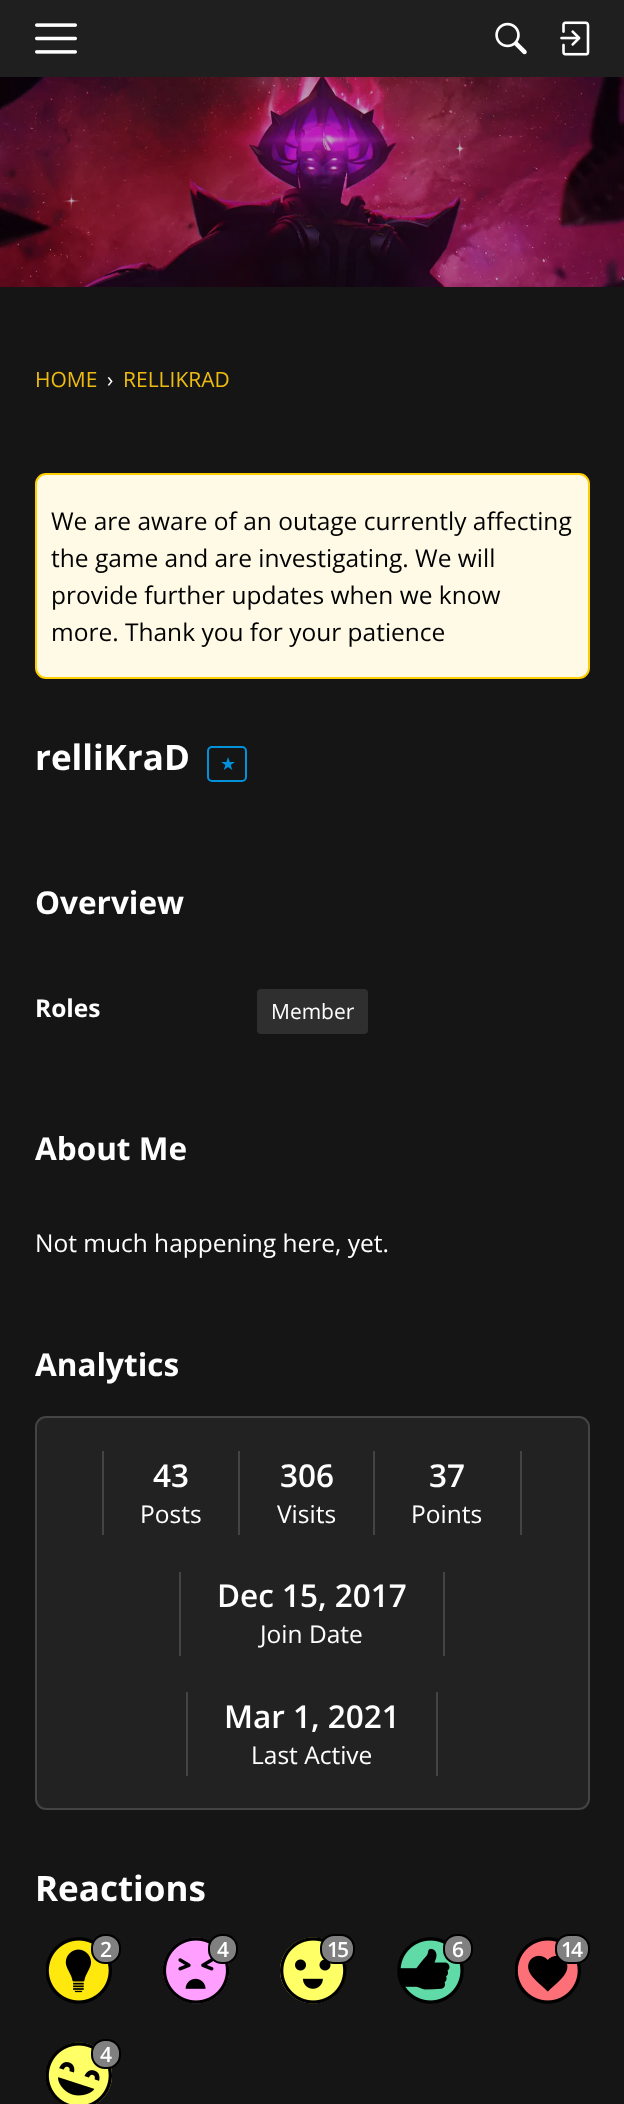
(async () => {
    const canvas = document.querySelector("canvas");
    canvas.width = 624;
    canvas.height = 2104;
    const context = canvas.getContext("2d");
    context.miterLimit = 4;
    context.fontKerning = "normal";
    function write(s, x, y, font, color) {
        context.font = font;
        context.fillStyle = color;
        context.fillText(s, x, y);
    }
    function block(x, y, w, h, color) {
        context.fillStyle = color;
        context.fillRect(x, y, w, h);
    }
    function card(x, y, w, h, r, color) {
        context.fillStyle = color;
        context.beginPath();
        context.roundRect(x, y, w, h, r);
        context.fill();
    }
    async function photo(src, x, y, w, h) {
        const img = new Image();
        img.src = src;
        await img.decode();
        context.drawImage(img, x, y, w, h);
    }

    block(0, 0, 624, 2104, "rgb(21, 21, 21)");
    block(0, 0, 624, 77, "rgb(31, 31, 31)");
    await photo("media/1.png", 35, 23, 42, 31);
    await photo("media/2.png", 495, 22, 32, 33);
    await photo("media/3.png", 560, 21, 30, 35);
    await photo("media/4.png", 0, 77, 624, 210);
    write("HOME", 35, 387, "21px Open Sans", "rgb(238, 188, 17)");
    write("›", 107, 387, "21px Open Sans", "rgb(255, 255, 255)");
    write("RELLIKRAD", 123, 387, "21px Open Sans", "rgb(238, 188, 17)");
    context.fillStyle = "rgb(255, 250, 230)";
    context.beginPath();
    context.roundRect(36, 474, 553, 204, 10);
    context.fill();
    context.strokeStyle = "rgb(255, 206, 0)";
    context.lineWidth = 2;
    context.stroke();
    write("We are aware of an outage currently affecting", 51, 530, "24.5px Open Sans", "rgb(0, 0, 0)");
    write("the game and are investigating. We will", 51, 567, "24.5px Open Sans", "rgb(0, 0, 0)");
    write("provide further updates when we know", 51, 604, "24.5px Open Sans", "rgb(0, 0, 0)");
    write("more. Thank you for your patience", 51, 641, "24.5px Open Sans", "rgb(0, 0, 0)");
    write("relliKraD", 35, 770, "bold 35px Open Sans", "rgb(255, 255, 255)");
    context.beginPath();
    context.roundRect(208, 747, 38, 34, 4);
    context.strokeStyle = "rgb(2, 145, 219)";
    context.stroke();
    write("★", 220, 770, "18px DejaVu Sans", "rgb(2, 145, 219)");
    write("Overview", 35, 914, "bold 31.5px Open Sans", "rgb(255, 255, 255)");
    write("Roles", 35, 1017, "bold 24.5px Open Sans", "rgb(255, 255, 255)");
    card(257, 989, 111, 45, 4, "rgb(47, 47, 47)");
    write("Member", 271, 1019, "21px Open Sans", "rgb(255, 255, 255)");
    write("About Me", 35, 1160, "bold 31.5px Open Sans", "rgb(255, 255, 255)");
    write("Not much happening here, yet.", 35, 1252, "24.5px Open Sans", "rgb(255, 255, 255)");
    write("Analytics", 35, 1376, "bold 31.5px Open Sans", "rgb(255, 255, 255)");
    context.fillStyle = "rgb(34, 34, 34)";
    context.beginPath();
    context.roundRect(36, 1417, 553, 392, 10);
    context.fill();
    context.strokeStyle = "rgb(68, 68, 68)";
    context.stroke();
    block(238, 1451, 2, 84, "rgb(68, 68, 68)");
    block(102, 1451, 2, 84, "rgb(68, 68, 68)");
    write("43", 153, 1487, "600 31.5px Open Sans", "rgb(255, 255, 255)");
    write("Posts", 140, 1523, "24.5px Open Sans", "rgb(255, 255, 255)");
    block(373, 1451, 2, 84, "rgb(68, 68, 68)");
    write("306", 280, 1487, "600 31.5px Open Sans", "rgb(255, 255, 255)");
    write("Visits", 277, 1523, "24.5px Open Sans", "rgb(255, 255, 255)");
    block(520, 1451, 2, 84, "rgb(68, 68, 68)");
    write("37", 429, 1487, "600 31.5px Open Sans", "rgb(255, 255, 255)");
    write("Points", 411, 1523, "24.5px Open Sans", "rgb(255, 255, 255)");
    block(443, 1572, 2, 84, "rgb(68, 68, 68)");
    block(179, 1572, 2, 84, "rgb(68, 68, 68)");
    write("Dec 15, 2017", 217, 1607, "600 31.5px Open Sans", "rgb(255, 255, 255)");
    write("Join Date", 260, 1643, "24.5px Open Sans", "rgb(255, 255, 255)");
    block(436, 1692, 2, 84, "rgb(68, 68, 68)");
    block(186, 1692, 2, 84, "rgb(68, 68, 68)");
    write("Mar 1, 2021", 224, 1728, "600 31.5px Open Sans", "rgb(255, 255, 255)");
    write("Last Active", 251, 1764, "24.5px Open Sans", "rgb(255, 255, 255)");
    write("Reactions", 35, 1901, "bold 35px Open Sans", "rgb(255, 255, 255)");
    await photo("media/5.png", 46, 1937, 66, 67);
    context.fillStyle = "rgb(128, 128, 128)";
    context.beginPath();
    context.roundRect(92, 1935, 28, 28, 13);
    context.fill();
    context.strokeStyle = "rgb(0, 0, 0)";
    context.stroke();
    context.letterSpacing = "-2px";
    write("2", 100, 1957, "600 21px Open Sans", "rgb(255, 255, 255)");
    await photo("media/6.png", 163, 1937, 66, 67);
    context.fillStyle = "rgb(128, 128, 128)";
    context.beginPath();
    context.roundRect(209, 1935, 28, 28, 13);
    context.fill();
    context.stroke();
    write("4", 217, 1957, "600 21px Open Sans", "rgb(255, 255, 255)");
    await photo("media/7.png", 280, 1937, 67, 67);
    context.fillStyle = "rgb(128, 128, 128)";
    context.beginPath();
    context.roundRect(321, 1935, 33, 28, 13);
    context.fill();
    context.stroke();
    write("15", 327, 1957, "600 21px Open Sans", "rgb(255, 255, 255)");
    await photo("media/8.png", 397, 1937, 67, 67);
    context.fillStyle = "rgb(128, 128, 128)";
    context.beginPath();
    context.roundRect(444, 1935, 28, 28, 13);
    context.fill();
    context.stroke();
    write("6", 452, 1957, "600 21px Open Sans", "rgb(255, 255, 255)");
    await photo("media/9.png", 515, 1937, 66, 67);
    context.fillStyle = "rgb(128, 128, 128)";
    context.beginPath();
    context.roundRect(556, 1935, 33, 28, 13);
    context.fill();
    context.stroke();
    write("14", 561, 1957, "600 21px Open Sans", "rgb(255, 255, 255)");
    await photo("media/10.png", 46, 2042, 66, 62);
    context.fillStyle = "rgb(128, 128, 128)";
    context.beginPath();
    context.roundRect(92, 2040, 28, 28, 13);
    context.fill();
    context.stroke();
    write("4", 100, 2062, "600 21px Open Sans", "rgb(255, 255, 255)");
})();
